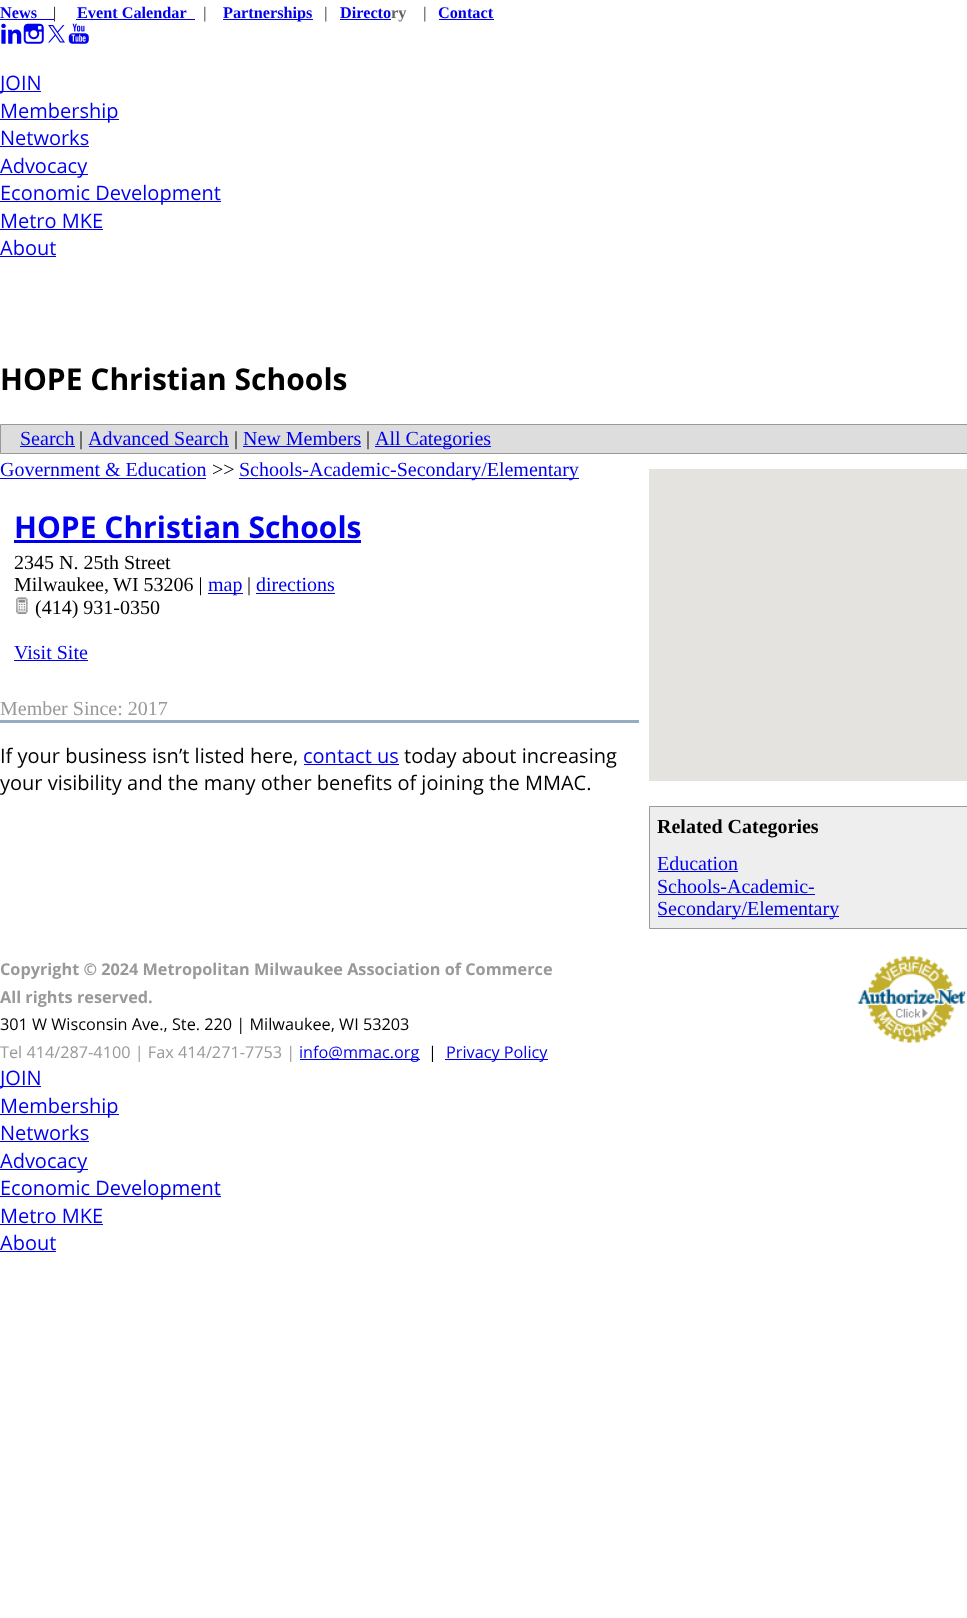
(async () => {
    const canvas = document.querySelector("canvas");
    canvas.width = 967;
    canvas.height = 1618;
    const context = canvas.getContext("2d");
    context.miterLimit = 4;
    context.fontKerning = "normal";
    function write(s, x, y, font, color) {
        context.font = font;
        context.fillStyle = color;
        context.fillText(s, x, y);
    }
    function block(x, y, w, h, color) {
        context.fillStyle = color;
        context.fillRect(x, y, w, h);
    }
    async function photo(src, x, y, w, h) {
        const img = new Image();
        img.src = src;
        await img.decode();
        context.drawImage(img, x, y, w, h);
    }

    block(0, 0, 967, 1618, "rgb(255, 255, 255)");
    write("News", 0, 18, "bold 16.25px Liberation Serif", "rgb(0, 0, 238)");
    write("|", 53, 18, "16.25px Liberation Serif", "rgb(0, 0, 0)");
    block(0, 19, 54, 1, "rgb(0, 0, 238)");
    write("Event Calendar", 77, 18, "bold 16.25px Liberation Serif", "rgb(0, 0, 238)");
    block(76, 19, 119, 1, "rgb(0, 0, 238)");
    write("|", 203, 18, "bold 16.25px Liberation Serif", "rgb(98, 98, 98)");
    block(223, 19, 90, 1, "rgb(0, 0, 238)");
    write("Partnerships", 223, 18, "bold 16.25px Liberation Serif", "rgb(0, 0, 238)");
    write("|", 324, 18, "bold 16.25px Liberation Serif", "rgb(98, 98, 98)");
    write("Directo", 340, 18, "bold 16.25px Liberation Serif", "rgb(0, 0, 238)");
    write("ry", 391, 18, "bold 16.25px Liberation Serif", "rgb(98, 98, 98)");
    block(340, 19, 51, 1, "rgb(0, 0, 238)");
    write("|", 423, 18, "bold 16.25px Liberation Serif", "rgb(98, 98, 98)");
    write("Contact", 438, 18, "bold 16.25px Liberation Serif", "rgb(0, 0, 238)");
    block(439, 19, 55, 1, "rgb(0, 0, 238)");
    await photo("media/1.png", 1, 23, 21, 21);
    await photo("media/2.png", 23, 23, 21, 21);
    await photo("media/3.png", 48, 25, 17, 18);
    await photo("media/4.png", 68, 23, 21, 21);
    block(0, 91, 41, 1, "rgb(0, 0, 238)");
    write("JOIN", 0, 90, "20px Open Sans", "rgb(0, 0, 238)");
    block(0, 119, 119, 1, "rgb(0, 0, 238)");
    write("Membership", 0, 118, "20px Open Sans", "rgb(0, 0, 238)");
    write("Networks", 0, 145, "20px Open Sans", "rgb(0, 0, 238)");
    block(0, 146, 89, 1, "rgb(0, 0, 238)");
    block(0, 174, 88, 1, "rgb(0, 0, 238)");
    write("Advocacy", 0, 173, "20px Open Sans", "rgb(0, 0, 238)");
    block(0, 201, 221, 1, "rgb(0, 0, 238)");
    write("Economic Development", 0, 200, "20px Open Sans", "rgb(0, 0, 238)");
    write("Metro MKE", 0, 228, "20px Open Sans", "rgb(0, 0, 238)");
    block(0, 229, 103, 1, "rgb(0, 0, 238)");
    write("About", 0, 255, "20px Open Sans", "rgb(0, 0, 238)");
    block(0, 256, 56, 1, "rgb(0, 0, 238)");
    write("HOPE Christian Schools", 0, 390, "bold 30px Open Sans", "rgb(0, 0, 0)");
    context.fillStyle = "rgb(221, 221, 221)";
    context.beginPath();
    context.rect(0.5, 424.5, 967, 29);
    context.fill();
    context.strokeStyle = "rgb(153, 153, 153)";
    context.stroke();
    write("Search", 20, 445, "20px Liberation Serif", "rgb(0, 0, 238)");
    block(20, 446, 55, 1, "rgb(0, 0, 238)");
    write("|", 79, 445, "20px Liberation Serif", "rgb(0, 0, 0)");
    write("Advanced Search", 88, 445, "20px Liberation Serif", "rgb(0, 0, 238)");
    block(89, 446, 140, 1, "rgb(0, 0, 238)");
    write("|", 234, 445, "20px Liberation Serif", "rgb(0, 0, 0)");
    write("New Members", 243, 445, "20px Liberation Serif", "rgb(0, 0, 238)");
    block(243, 446, 118, 1, "rgb(0, 0, 238)");
    write("|", 366, 445, "20px Liberation Serif", "rgb(0, 0, 0)");
    block(375, 446, 116, 1, "rgb(0, 0, 238)");
    write("All Categories", 375, 445, "20px Liberation Serif", "rgb(0, 0, 238)");
    write("Government & Education", 0, 476, "20px Liberation Serif", "rgb(0, 0, 238)");
    block(0, 478, 206, 1, "rgb(0, 0, 238)");
    write(">>", 212, 476, "20px Liberation Serif", "rgb(0, 0, 0)");
    block(239, 478, 340, 1, "rgb(0, 0, 238)");
    write("Schools-Academic-Secondary/Elementary", 239, 476, "20px Liberation Serif", "rgb(0, 0, 238)");
    write("HOPE Christian Schools", 14, 538, "bold 30px Open Sans", "rgb(0, 0, 238)");
    block(14, 540, 347, 3, "rgb(0, 0, 238)");
    write("2345 N. 25th Street", 14, 569, "20px Liberation Serif", "rgb(0, 0, 0)");
    write("Milwaukee,", 14, 591, "20px Liberation Serif", "rgb(0, 0, 0)");
    write("WI 53206 |", 113, 591, "20px Liberation Serif", "rgb(0, 0, 0)");
    block(208, 593, 35, 1, "rgb(0, 0, 238)");
    write("map", 208, 591, "20px Liberation Serif", "rgb(0, 0, 238)");
    write("|", 247, 591, "20px Liberation Serif", "rgb(0, 0, 0)");
    write("directions", 256, 591, "20px Liberation Serif", "rgb(0, 0, 238)");
    block(256, 593, 79, 1, "rgb(0, 0, 238)");
    await photo("media/5.png", 16, 597, 12, 17);
    write("(414) 931-0350", 35, 614, "20px Liberation Serif", "rgb(0, 0, 0)");
    write("Visit Site", 14, 659, "20px Liberation Serif", "rgb(0, 0, 238)");
    block(14, 660, 74, 1, "rgb(0, 0, 238)");
    write("Member Since: 2017", 0, 715, "20px Liberation Serif", "rgb(153, 153, 153)");
    block(0, 720, 639, 3, "rgb(150, 172, 195)");
    write("If your business isn’t listed here,", 0, 763, "20px Open Sans", "rgb(0, 0, 0)");
    write("contact us", 303, 763, "20px Open Sans", "rgb(0, 0, 238)");
    block(304, 764, 95, 1, "rgb(0, 0, 238)");
    write("today about increasing", 404, 763, "20px Open Sans", "rgb(0, 0, 0)");
    write("your visibility and the many other benefits of joining the MMAC.", 0, 790, "20px Open Sans", "rgb(0, 0, 0)");
    block(649, 469, 318, 312, "rgb(229, 227, 223)");
    context.fillStyle = "rgb(238, 238, 238)";
    context.beginPath();
    context.rect(649.5, 806.5, 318, 122);
    context.fill();
    context.stroke();
    write("Related Categories", 657, 833, "bold 20px Liberation Serif", "rgb(0, 0, 0)");
    write("Education", 657, 870, "20px Liberation Serif", "rgb(0, 0, 238)");
    block(658, 871, 80, 1, "rgb(0, 0, 238)");
    write("Schools-Academic-", 657, 893, "20px Liberation Serif", "rgb(0, 0, 238)");
    block(658, 894, 157, 1, "rgb(0, 0, 238)");
    block(658, 916, 181, 1, "rgb(0, 0, 238)");
    write("Secondary/Elementary", 657, 915, "20px Liberation Serif", "rgb(0, 0, 238)");
    write("Copyright © 2024 Metropolitan Milwaukee Association of Commerce", 0, 975, "bold 16.25px Open Sans", "rgb(153, 153, 153)");
    write("All rights reserved.", 0, 1003, "bold 16.25px Open Sans", "rgb(153, 153, 153)");
    write("301 W Wisconsin Ave., Ste. 220 | Milwaukee, WI 53203", 0, 1030, "16.25px Open Sans", "rgb(0, 0, 0)");
    write("Tel 414/287-4100 | Fax 414/271-7753 |", 0, 1058, "16.25px Open Sans", "rgb(153, 153, 153)");
    block(300, 1059, 120, 1, "rgb(0, 0, 238)");
    write("info@mmac.org", 299, 1058, "16.25px Open Sans", "rgb(0, 0, 238)");
    write("|", 428, 1058, "16.25px Open Sans", "rgb(0, 0, 0)");
    block(445, 1059, 103, 1, "rgb(0, 0, 238)");
    write("Privacy Policy", 446, 1058, "16.25px Open Sans", "rgb(0, 0, 238)");
    await photo("media/6.png", 857, 956, 109, 87);
    block(0, 1086, 41, 1, "rgb(0, 0, 238)");
    write("JOIN", 0, 1085, "20px Open Sans", "rgb(0, 0, 238)");
    block(0, 1114, 119, 1, "rgb(0, 0, 238)");
    write("Membership", 0, 1113, "20px Open Sans", "rgb(0, 0, 238)");
    write("Networks", 0, 1140, "20px Open Sans", "rgb(0, 0, 238)");
    block(0, 1141, 89, 1, "rgb(0, 0, 238)");
    block(0, 1169, 88, 1, "rgb(0, 0, 238)");
    write("Advocacy", 0, 1168, "20px Open Sans", "rgb(0, 0, 238)");
    block(0, 1196, 221, 1, "rgb(0, 0, 238)");
    write("Economic Development", 0, 1195, "20px Open Sans", "rgb(0, 0, 238)");
    write("Metro MKE", 0, 1223, "20px Open Sans", "rgb(0, 0, 238)");
    block(0, 1224, 103, 1, "rgb(0, 0, 238)");
    write("About", 0, 1250, "20px Open Sans", "rgb(0, 0, 238)");
    block(0, 1251, 56, 1, "rgb(0, 0, 238)");
})();
